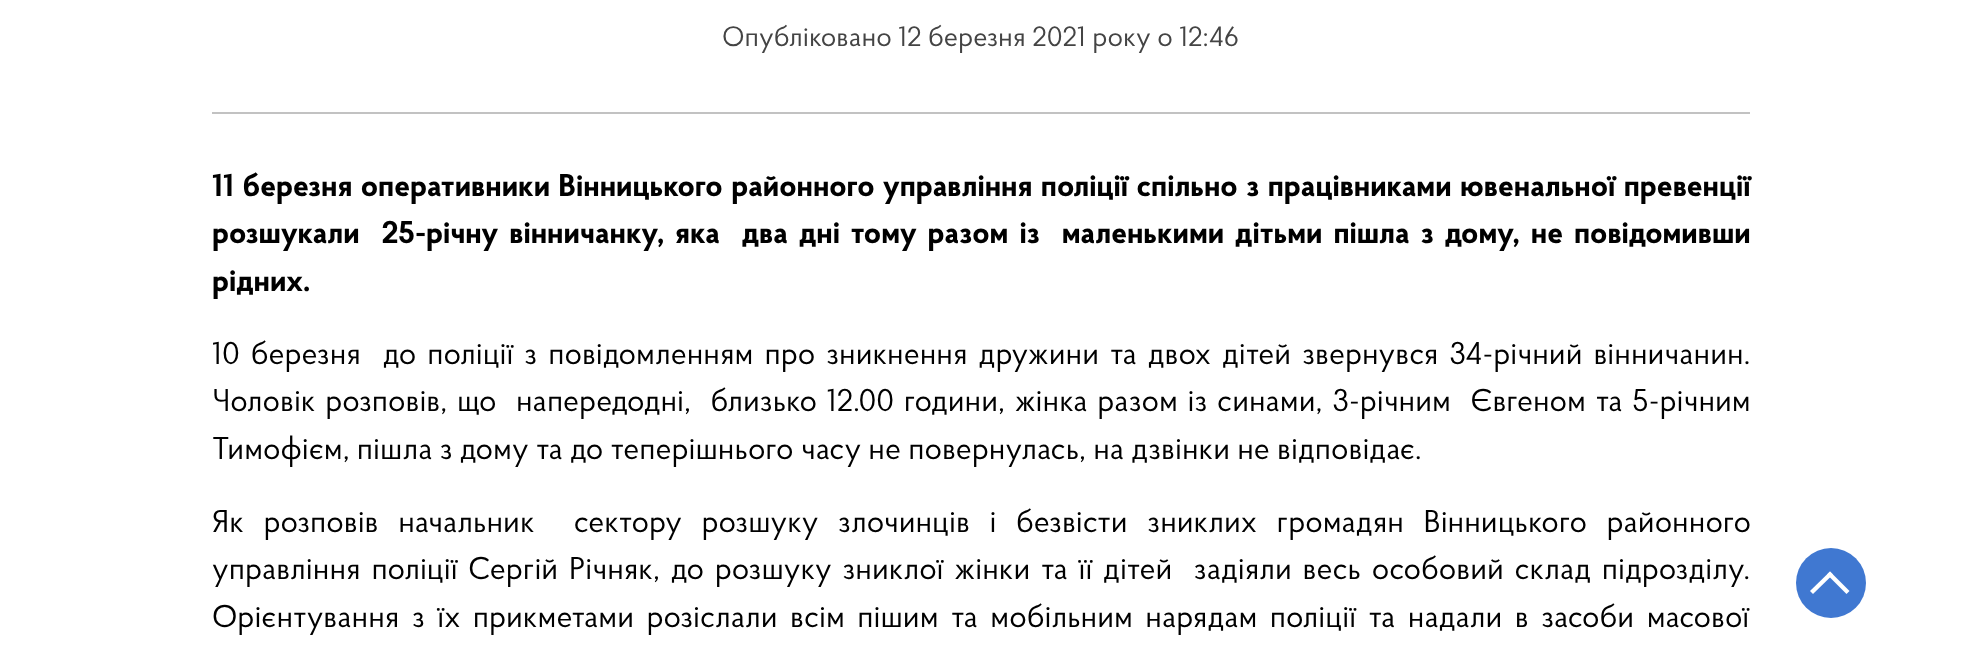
(async () => {
    const canvas = document.querySelector("canvas");
    canvas.width = 1961;
    canvas.height = 660;
    const context = canvas.getContext("2d");
    context.miterLimit = 4;
    context.fontKerning = "normal";
    function write(s, x, y, font, color) {
        context.font = font;
        context.fillStyle = color;
        context.fillText(s, x, y);
    }
    function block(x, y, w, h, color) {
        context.fillStyle = color;
        context.fillRect(x, y, w, h);
    }

    block(0, 0, 1961, 660, "rgb(255, 255, 255)");
    write("Опубліковано 12 березня 2021 року о 12:46", 722, 46, "28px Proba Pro", "rgb(68, 68, 68)");
    block(212, 112, 1538, 2, "rgb(194, 194, 194)");
    context.wordSpacing = "1.25px";
    write("11 березня оперативники Вінницького районного управління поліції спільно з працівниками ювенальної превенції", 212, 196, "bold 31.5px Proba Pro", "rgb(0, 0, 0)");
    context.wordSpacing = "3.75px";
    write("розшукали  25-річну вінничанку, яка  два дні тому разом із  маленькими дітьми пішла з дому, не повідомивши", 212, 243, "bold 31.5px Proba Pro", "rgb(0, 0, 0)");
    context.wordSpacing = "0px";
    write("рідних.", 212, 291, "bold 31.5px Proba Pro", "rgb(0, 0, 0)");
    context.wordSpacing = "3.75px";
    write("10 березня  до поліції з повідомленням про зникнення дружини та двох дітей звернувся 34-річний вінничанин.", 212, 364, "31.5px Proba Pro", "rgb(0, 0, 0)");
    context.wordSpacing = "2.5px";
    write("Чоловік розповів, що  напередодні,  близько 12.00 години, жінка разом із синами, 3-річним  Євгеном та 5-річним", 212, 411, "31.5px Proba Pro", "rgb(0, 0, 0)");
    context.wordSpacing = "0px";
    write("Тимофієм, пішла з дому та до теперішнього часу не повернулась, на дзвінки не відповідає.", 212, 459, "31.5px Proba Pro", "rgb(0, 0, 0)");
    context.wordSpacing = "12.4px";
    write("Як розповів начальник  сектору розшуку злочинців і безвісти зниклих громадян Вінницького районного", 212, 532, "31.5px Proba Pro", "rgb(0, 0, 0)");
    context.wordSpacing = "3.5px";
    write("управління поліції Сергій Річняк, до розшуку зниклої жінки та її дітей  задіяли весь особовий склад підрозділу.", 212, 579, "31.5px Proba Pro", "rgb(0, 0, 0)");
    context.wordSpacing = "5.25px";
    write("Орієнтування з їх прикметами розіслали всім пішим та мобільним нарядам поліції та надали в засоби масової", 212, 627, "31.5px Proba Pro", "rgb(0, 0, 0)");
    context.fillStyle = "rgb(64, 120, 209)";
    context.beginPath();
    context.arc(1831, 583, 35, 0, Math.PI * 2);
    context.fill();
    context.fillStyle = "rgb(255, 255, 255)";
    context.beginPath();
    context.moveTo(1827, 574.5);
    context.lineTo(1830, 571.5);
    context.lineTo(1849.5, 591);
    context.lineTo(1846.5, 594);
    context.closePath();
    context.fill();
    context.beginPath();
    context.moveTo(1830, 571.5);
    context.lineTo(1833, 574.5);
    context.lineTo(1813, 594);
    context.lineTo(1810, 591);
    context.closePath();
    context.fill();
})();
